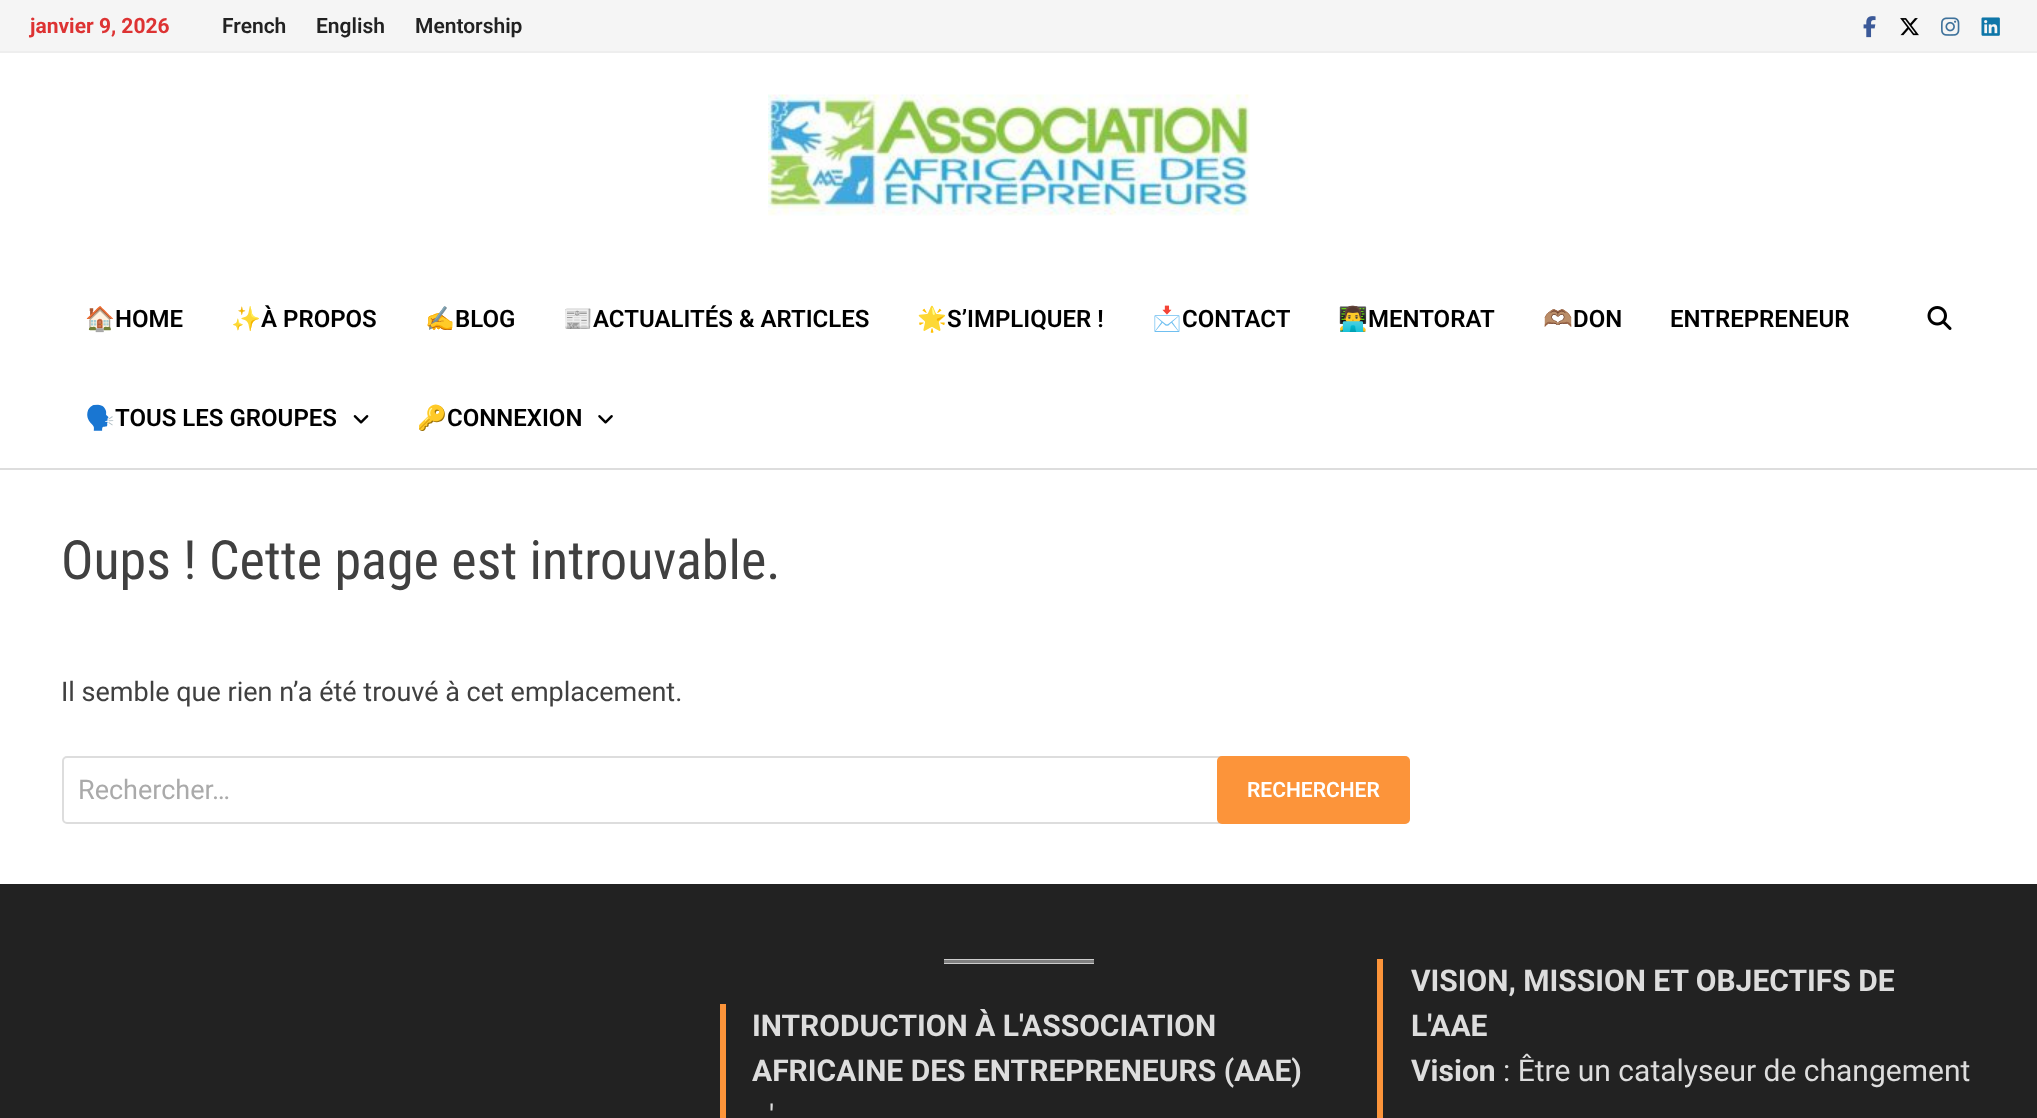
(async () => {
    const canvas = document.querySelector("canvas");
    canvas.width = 2037;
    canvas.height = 1118;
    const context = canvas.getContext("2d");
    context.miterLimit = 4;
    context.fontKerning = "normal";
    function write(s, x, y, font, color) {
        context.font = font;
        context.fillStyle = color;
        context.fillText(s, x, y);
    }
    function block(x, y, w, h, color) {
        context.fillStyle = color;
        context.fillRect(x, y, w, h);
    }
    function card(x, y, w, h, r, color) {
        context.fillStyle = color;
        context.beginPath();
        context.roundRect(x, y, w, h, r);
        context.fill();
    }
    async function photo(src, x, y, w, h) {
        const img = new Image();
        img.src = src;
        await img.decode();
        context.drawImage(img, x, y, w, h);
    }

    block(0, 0, 2037, 1118, "rgb(255, 255, 255)");
    block(0, 0, 2037, 51, "rgb(245, 245, 245)");
    block(0, 51, 2037, 2, "rgb(238, 238, 238)");
    write("janvier 9, 2026", 30, 33, "bold 21px Roboto", "rgb(221, 51, 51)");
    write("French", 222, 33, "600 21px Roboto", "rgb(34, 34, 34)");
    write("English", 316, 33, "600 21px Roboto", "rgb(34, 34, 34)");
    write("Mentorship", 415, 33, "600 21px Roboto", "rgb(34, 34, 34)");
    await photo("media/1.png", 1863, 16, 13, 22);
    await photo("media/2.png", 1900, 18, 19, 18);
    await photo("media/3.png", 1941, 17, 19, 19);
    await photo("media/4.png", 1981, 17, 19, 19);
    block(0, 468, 2037, 2, "rgb(221, 221, 221)");
    await photo("media/5.png", 768, 94, 482, 122);
    write("🏠", 85, 327, "bold 24px Noto Color Emoji", "rgb(0, 0, 0)");
    write("HOME", 115, 327, "600 24px Roboto", "rgb(0, 0, 0)");
    write("✨", 231, 327, "bold 24px Noto Color Emoji", "rgb(0, 0, 0)");
    write("À PROPOS", 261, 327, "600 24px Roboto", "rgb(0, 0, 0)");
    write("✍️", 425, 327, "bold 24px Noto Color Emoji", "rgb(0, 0, 0)");
    write("BLOG", 455, 327, "600 24px Roboto", "rgb(0, 0, 0)");
    write("📰", 563, 327, "bold 24px Noto Color Emoji", "rgb(0, 0, 0)");
    write("ACTUALITÉS & ARTICLES", 593, 327, "600 24px Roboto", "rgb(0, 0, 0)");
    write("🌟", 917, 327, "bold 24px Noto Color Emoji", "rgb(0, 0, 0)");
    write("S’IMPLIQUER !", 947, 327, "600 24px Roboto", "rgb(0, 0, 0)");
    write("📩", 1152, 327, "bold 24px Noto Color Emoji", "rgb(0, 0, 0)");
    write("CONTACT", 1182, 327, "600 24px Roboto", "rgb(0, 0, 0)");
    write("👨‍💻", 1338, 327, "bold 24px Noto Color Emoji", "rgb(0, 0, 0)");
    write("MENTORAT", 1368, 327, "600 24px Roboto", "rgb(0, 0, 0)");
    write("🫶🏽", 1543, 327, "bold 24px Noto Color Emoji", "rgb(0, 0, 0)");
    write("DON", 1573, 327, "600 24px Roboto", "rgb(0, 0, 0)");
    write("ENTREPRENEUR", 1670, 327, "600 24px Roboto", "rgb(0, 0, 0)");
    write("🗣️", 85, 426, "bold 24px Noto Color Emoji", "rgb(0, 0, 0)");
    write("TOUS LES GROUPES", 115, 426, "600 24px Roboto", "rgb(0, 0, 0)");
    await photo("media/6.png", 353, 415, 16, 9);
    write("🔑", 417, 426, "bold 24px Noto Color Emoji", "rgb(0, 0, 0)");
    write("CONNEXION", 447, 426, "600 24px Roboto", "rgb(0, 0, 0)");
    await photo("media/7.png", 598, 415, 15, 9);
    await photo("media/8.png", 1927, 306, 25, 24);
    write("Oups ! Cette page est introuvable.", 61, 579, "54px Roboto Condensed", "rgb(64, 64, 64)");
    write("Il semble que rien n’a été trouvé à cet emplacement.", 61, 701, "27px Roboto", "rgb(64, 64, 64)");
    context.beginPath();
    context.roundRect(63, 757, 1346, 66, 4);
    context.strokeStyle = "rgb(221, 221, 221)";
    context.lineWidth = 2;
    context.stroke();
    write("Rechercher…", 78, 799, "27px Roboto", "rgb(170, 170, 170)");
    card(1217, 756, 193, 68, 5, "rgb(252, 148, 58)");
    write("RECHERCHER", 1247, 797, "600 21px Roboto", "rgb(255, 255, 255)");
    block(0, 884, 2037, 234, "rgb(34, 34, 34)");
    block(944, 959, 150, 5, "rgb(204, 204, 204)");
    block(944, 960, 150, 3, "rgb(128, 128, 128)");
    block(720, 1004, 6, 114, "rgb(252, 148, 58)");
    write("INTRODUCTION À L'ASSOCIATION", 752, 1036, "bold 30px Roboto", "rgb(221, 221, 221)");
    write("AFRICAINE DES ENTREPRENEURS (AAE)", 752, 1081, "bold 30px Roboto", "rgb(221, 221, 221)");
    write("'", 769, 1126, "30px Roboto", "rgb(221, 221, 221)");
    block(1377, 959, 6, 159, "rgb(252, 148, 58)");
    write("VISION, MISSION ET OBJECTIFS DE", 1411, 991, "bold 30px Roboto", "rgb(221, 221, 221)");
    write("L'AAE", 1411, 1036, "bold 30px Roboto", "rgb(221, 221, 221)");
    write("Vision", 1411, 1081, "bold 30px Roboto", "rgb(221, 221, 221)");
    write(": Être un catalyseur de changement", 1503, 1081, "30px Roboto", "rgb(221, 221, 221)");
})();
